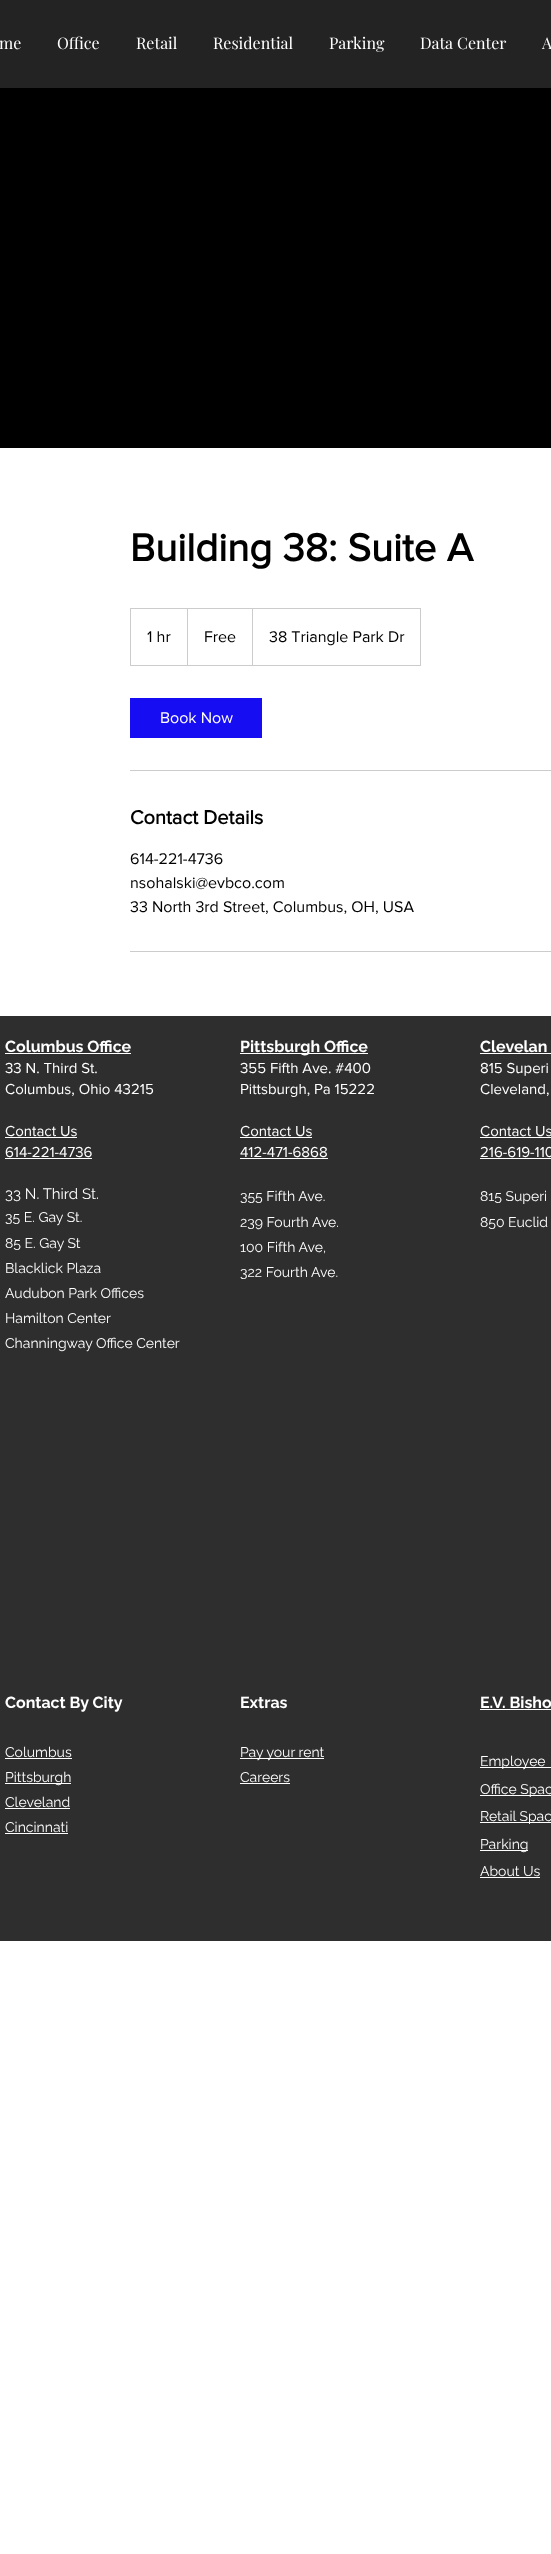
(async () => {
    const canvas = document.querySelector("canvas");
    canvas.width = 551;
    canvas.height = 2554;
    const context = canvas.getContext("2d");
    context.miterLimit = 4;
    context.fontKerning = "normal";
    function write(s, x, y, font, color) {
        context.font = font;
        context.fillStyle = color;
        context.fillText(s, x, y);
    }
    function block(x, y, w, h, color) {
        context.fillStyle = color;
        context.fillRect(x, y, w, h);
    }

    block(0, 0, 551, 2554, "rgb(255, 255, 255)");
    block(0, 0, 551, 88, "rgb(36, 35, 35)");
    write("me", -1, 49, "16px Playfair Display", "rgb(255, 255, 255)");
    write("Office", 57, 49, "16px Playfair Display", "rgb(255, 255, 255)");
    write("Retail", 136, 49, "16px Playfair Display", "rgb(255, 255, 255)");
    write("Residential", 213, 49, "16px Playfair Display", "rgb(255, 255, 255)");
    write("Parking", 329, 49, "16px Playfair Display", "rgb(255, 255, 255)");
    write("Data Center", 420, 49, "16px Playfair Display", "rgb(255, 255, 255)");
    write("A", 542, 49, "16px Playfair Display", "rgb(255, 255, 255)");
    block(0, 88, 551, 360, "rgb(0, 0, 0)");
    write("Building 38: Suite A", 130, 561, "bold 40px 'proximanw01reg'", "rgb(0, 0, 0)");
    context.strokeStyle = "rgb(204, 204, 204)";
    context.strokeRect(130.5, 608.5, 290, 57);
    write("1 hr", 147, 642, "16px 'proximanw01reg'", "rgb(0, 0, 0)");
    context.fillStyle = "rgb(204, 204, 204)";
    context.beginPath();
    context.moveTo(187, 665);
    context.lineTo(187, 608);
    context.lineTo(188, 609);
    context.lineTo(188, 665);
    context.closePath();
    context.fill();
    write("Free", 204, 642, "16px 'proximanw01reg'", "rgb(0, 0, 0)");
    context.fillStyle = "rgb(204, 204, 204)";
    context.beginPath();
    context.moveTo(252, 665);
    context.lineTo(252, 608);
    context.lineTo(253, 609);
    context.lineTo(253, 665);
    context.closePath();
    context.fill();
    write("38 Triangle Park Dr", 269, 642, "16px 'proximanw01reg'", "rgb(0, 0, 0)");
    block(130, 698, 132, 40, "rgb(23, 13, 242)");
    write("Book Now", 160, 723, "16px 'proximanw01reg'", "rgb(255, 255, 255)");
    block(130, 770, 421, 1, "rgb(204, 204, 204)");
    write("Contact Details", 130, 824, "bold 20px 'proximanw01reg'", "rgb(0, 0, 0)");
    write("614-221-4736", 130, 864, "16px 'proximanw01reg'", "rgb(0, 0, 0)");
    write("nsohalski@evbco.com", 130, 888, "16px 'proximanw01reg'", "rgb(0, 0, 0)");
    write("33 North 3rd Street, Columbus, OH, USA", 130, 912, "16px 'proximanw01reg'", "rgb(0, 0, 0)");
    block(130, 951, 421, 1, "rgb(204, 204, 204)");
    block(0, 1016, 551, 925, "rgb(47, 46, 46)");
    write("Columbus Office", 5, 1052, "bold 16px Raleway", "rgb(255, 255, 255)");
    block(5, 1053, 126, 1, "rgb(255, 255, 255)");
    write("33 N. Third St.", 5, 1073, "15px 'proximanw01reg'", "rgb(255, 255, 255)");
    write("Columbus, Ohio 43215", 5, 1094, "15px 'proximanw01reg'", "rgb(255, 255, 255)");
    write("Contact Us", 5, 1136, "15px 'proximanw01reg'", "rgb(255, 255, 255)");
    block(5, 1137, 72, 1, "rgb(255, 255, 255)");
    write("614-221-4736", 5, 1157, "15px 'proximanw01reg'", "rgb(255, 255, 255)");
    block(5, 1158, 87, 1, "rgb(255, 255, 255)");
    write("33 N. Third St.", 5, 1199, "15px Raleway", "rgb(255, 255, 255)");
    write("35 E. Gay St.", 5, 1222, "14px Raleway", "rgb(255, 255, 255)");
    write("85 E. Gay St", 5, 1248, "14px Raleway", "rgb(255, 255, 255)");
    write("Blacklick Plaza", 5, 1273, "14px Raleway", "rgb(255, 255, 255)");
    write("Audubon Park Offices", 5, 1298, "14px Raleway", "rgb(255, 255, 255)");
    write("Hamilton Center", 5, 1323, "14px Raleway", "rgb(255, 255, 255)");
    write("Channingway Office Center", 5, 1348, "14px Raleway", "rgb(255, 255, 255)");
    block(240, 1053, 128, 1, "rgb(255, 255, 255)");
    write("Pittsburgh Office", 240, 1052, "bold 16px Raleway", "rgb(255, 255, 255)");
    write("355 Fifth Ave. #400", 240, 1073, "15px 'proximanw01reg'", "rgb(255, 255, 255)");
    write("Pittsburgh, Pa 15222", 240, 1094, "15px 'proximanw01reg'", "rgb(255, 255, 255)");
    write("Contact Us", 240, 1136, "15px 'proximanw01reg'", "rgb(255, 255, 255)");
    block(240, 1137, 72, 1, "rgb(255, 255, 255)");
    write("412-471-6868", 240, 1157, "15px 'proximanw01reg'", "rgb(255, 255, 255)");
    block(240, 1158, 88, 1, "rgb(255, 255, 255)");
    write("355 Fifth Ave.", 240, 1201, "14px Raleway", "rgb(255, 255, 255)");
    write("239 Fourth Ave.", 240, 1227, "14px Raleway", "rgb(255, 255, 255)");
    write("100 Fifth Ave,", 240, 1252, "14px Raleway", "rgb(255, 255, 255)");
    write("322 Fourth Ave.", 240, 1277, "14px Raleway", "rgb(255, 255, 255)");
    write("Clevelan", 480, 1052, "bold 16px Raleway", "rgb(255, 255, 255)");
    block(480, 1053, 71, 1, "rgb(255, 255, 255)");
    write("815 Superi", 480, 1073, "15px 'proximanw01reg'", "rgb(255, 255, 255)");
    write("Cleveland,", 480, 1094, "15px 'proximanw01reg'", "rgb(255, 255, 255)");
    write("Contact Us", 480, 1136, "15px 'proximanw01reg'", "rgb(255, 255, 255)");
    block(480, 1137, 71, 1, "rgb(255, 255, 255)");
    write("216-619-110", 480, 1157, "15px 'proximanw01reg'", "rgb(255, 255, 255)");
    block(480, 1158, 71, 1, "rgb(255, 255, 255)");
    write("815 Superi", 480, 1201, "14px Raleway", "rgb(255, 255, 255)");
    write("850 Euclid", 480, 1227, "14px Raleway", "rgb(255, 255, 255)");
    write("Contact By City", 5, 1708, "bold 16px Raleway", "rgb(255, 255, 255)");
    write("Columbus", 5, 1757, "14px Raleway", "rgb(255, 255, 255)");
    block(5, 1758, 67, 1, "rgb(255, 255, 255)");
    block(5, 1783, 66, 1, "rgb(255, 255, 255)");
    write("Pittsburgh", 5, 1782, "14px Raleway", "rgb(255, 255, 255)");
    write("Cleveland", 5, 1807, "14px Raleway", "rgb(255, 255, 255)");
    block(5, 1808, 65, 1, "rgb(255, 255, 255)");
    write("Cincinnati", 5, 1832, "14px Raleway", "rgb(255, 255, 255)");
    block(5, 1833, 63, 1, "rgb(255, 255, 255)");
    write("Extras", 240, 1708, "bold 16px Raleway", "rgb(255, 255, 255)");
    block(240, 1758, 84, 1, "rgb(255, 255, 255)");
    write("Pay your rent", 240, 1757, "14px Raleway", "rgb(255, 255, 255)");
    write("Careers", 240, 1782, "14px Raleway", "rgb(255, 255, 255)");
    block(240, 1783, 50, 1, "rgb(255, 255, 255)");
    write("E.V. Bisho", 480, 1708, "bold 16px Raleway", "rgb(255, 255, 255)");
    block(480, 1709, 71, 1, "rgb(255, 255, 255)");
    block(480, 1767, 71, 1, "rgb(255, 255, 255)");
    write("Employee", 480, 1766, "14px Raleway", "rgb(255, 255, 255)");
    block(480, 1795, 71, 1, "rgb(255, 255, 255)");
    write("Office Spac", 480, 1794, "14px Raleway", "rgb(255, 255, 255)");
    block(480, 1822, 71, 1, "rgb(255, 255, 255)");
    write("Retail Spac", 480, 1821, "14px Raleway", "rgb(255, 255, 255)");
    block(480, 1850, 48, 1, "rgb(255, 255, 255)");
    write("Parking", 480, 1849, "14px Raleway", "rgb(255, 255, 255)");
    write("About Us", 480, 1876, "14px Raleway", "rgb(255, 255, 255)");
    block(480, 1877, 60, 1, "rgb(255, 255, 255)");
})();
